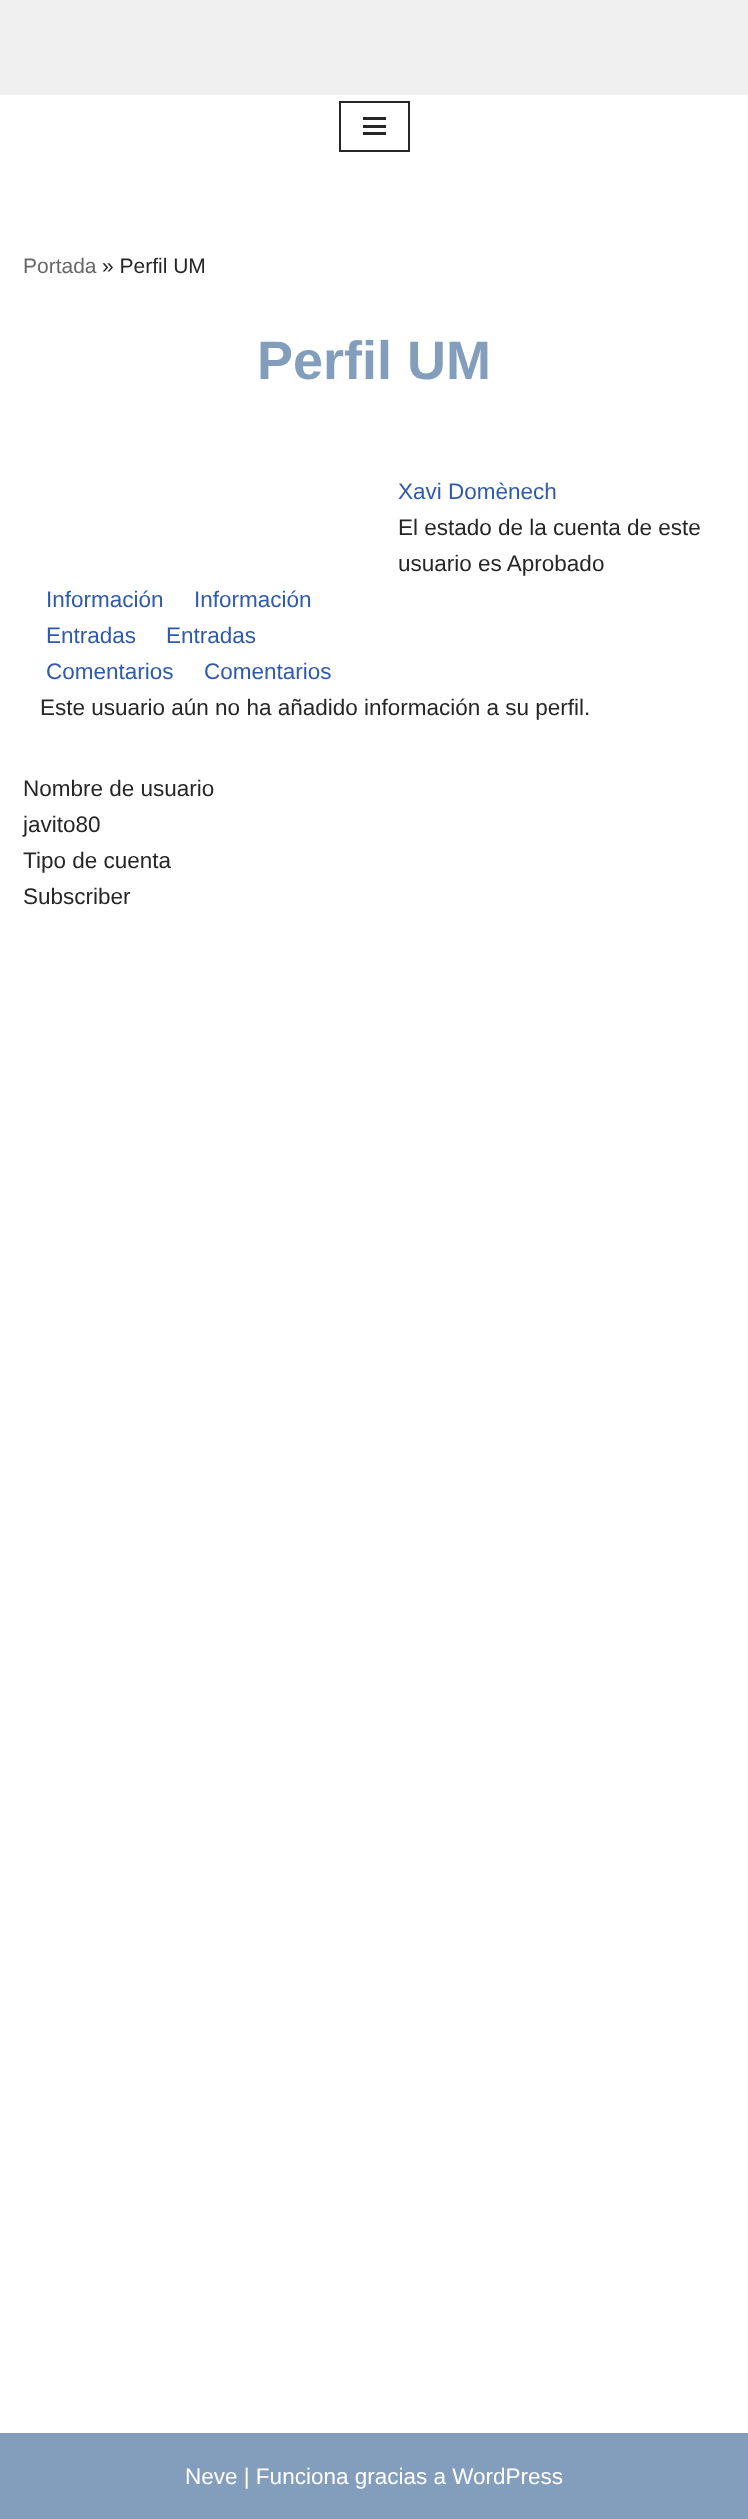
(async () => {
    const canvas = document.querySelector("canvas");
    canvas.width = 748;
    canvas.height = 2519;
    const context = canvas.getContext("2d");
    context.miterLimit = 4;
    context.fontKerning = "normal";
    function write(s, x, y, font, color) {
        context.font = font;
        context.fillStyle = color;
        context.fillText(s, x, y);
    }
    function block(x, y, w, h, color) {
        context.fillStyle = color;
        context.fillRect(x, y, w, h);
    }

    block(0, 0, 748, 2519, "rgb(255, 255, 255)");
    block(0, 0, 748, 95, "rgb(240, 240, 240)");
    context.strokeStyle = "rgb(39, 38, 38)";
    context.lineWidth = 2;
    context.strokeRect(340, 102, 69, 49);
    block(363, 117, 23, 3, "rgb(39, 38, 38)");
    block(363, 125, 23, 3, "rgb(39, 38, 38)");
    block(363, 132, 23, 3, "rgb(39, 38, 38)");
    write("Portada", 23, 273, "21px Liberation Sans", "rgb(103, 103, 103)");
    write("» Perfil UM", 102, 273, "21px Liberation Sans", "rgb(39, 38, 38)");
    write("Perfil UM", 257, 379, "bold 54px Liberation Sans", "rgb(131, 158, 189)");
    write("Xavi Domènech", 398, 499, "22.5px Liberation Sans", "rgb(47, 90, 174)");
    write("El estado de la cuenta de este", 398, 535, "22.5px Liberation Sans", "rgb(39, 38, 38)");
    write("usuario es Aprobado", 398, 571, "22.5px Liberation Sans", "rgb(39, 38, 38)");
    write("Información", 46, 607, "22.5px Liberation Sans", "rgb(47, 90, 174)");
    write("Información", 194, 607, "22.5px Liberation Sans", "rgb(47, 90, 174)");
    write("Entradas", 46, 643, "22.5px Liberation Sans", "rgb(47, 90, 174)");
    write("Entradas", 166, 643, "22.5px Liberation Sans", "rgb(47, 90, 174)");
    write("Comentarios", 46, 679, "22.5px Liberation Sans", "rgb(47, 90, 174)");
    write("Comentarios", 204, 679, "22.5px Liberation Sans", "rgb(47, 90, 174)");
    write("Este usuario aún no ha añadido información a su perfil.", 40, 715, "22.5px Liberation Sans", "rgb(39, 38, 38)");
    write("Nombre de usuario", 23, 796, "22.5px Liberation Sans", "rgb(39, 38, 38)");
    write("javito80", 23, 832, "22.5px Liberation Sans", "rgb(39, 38, 38)");
    write("Tipo de cuenta", 23, 868, "22.5px Liberation Sans", "rgb(39, 38, 38)");
    write("Subscriber", 23, 904, "22.5px Liberation Sans", "rgb(39, 38, 38)");
    block(0, 2433, 748, 86, "rgb(131, 158, 189)");
    write("Neve | Funciona gracias a WordPress", 185, 2484, "22.5px Liberation Sans", "rgb(255, 255, 255)");
})();
